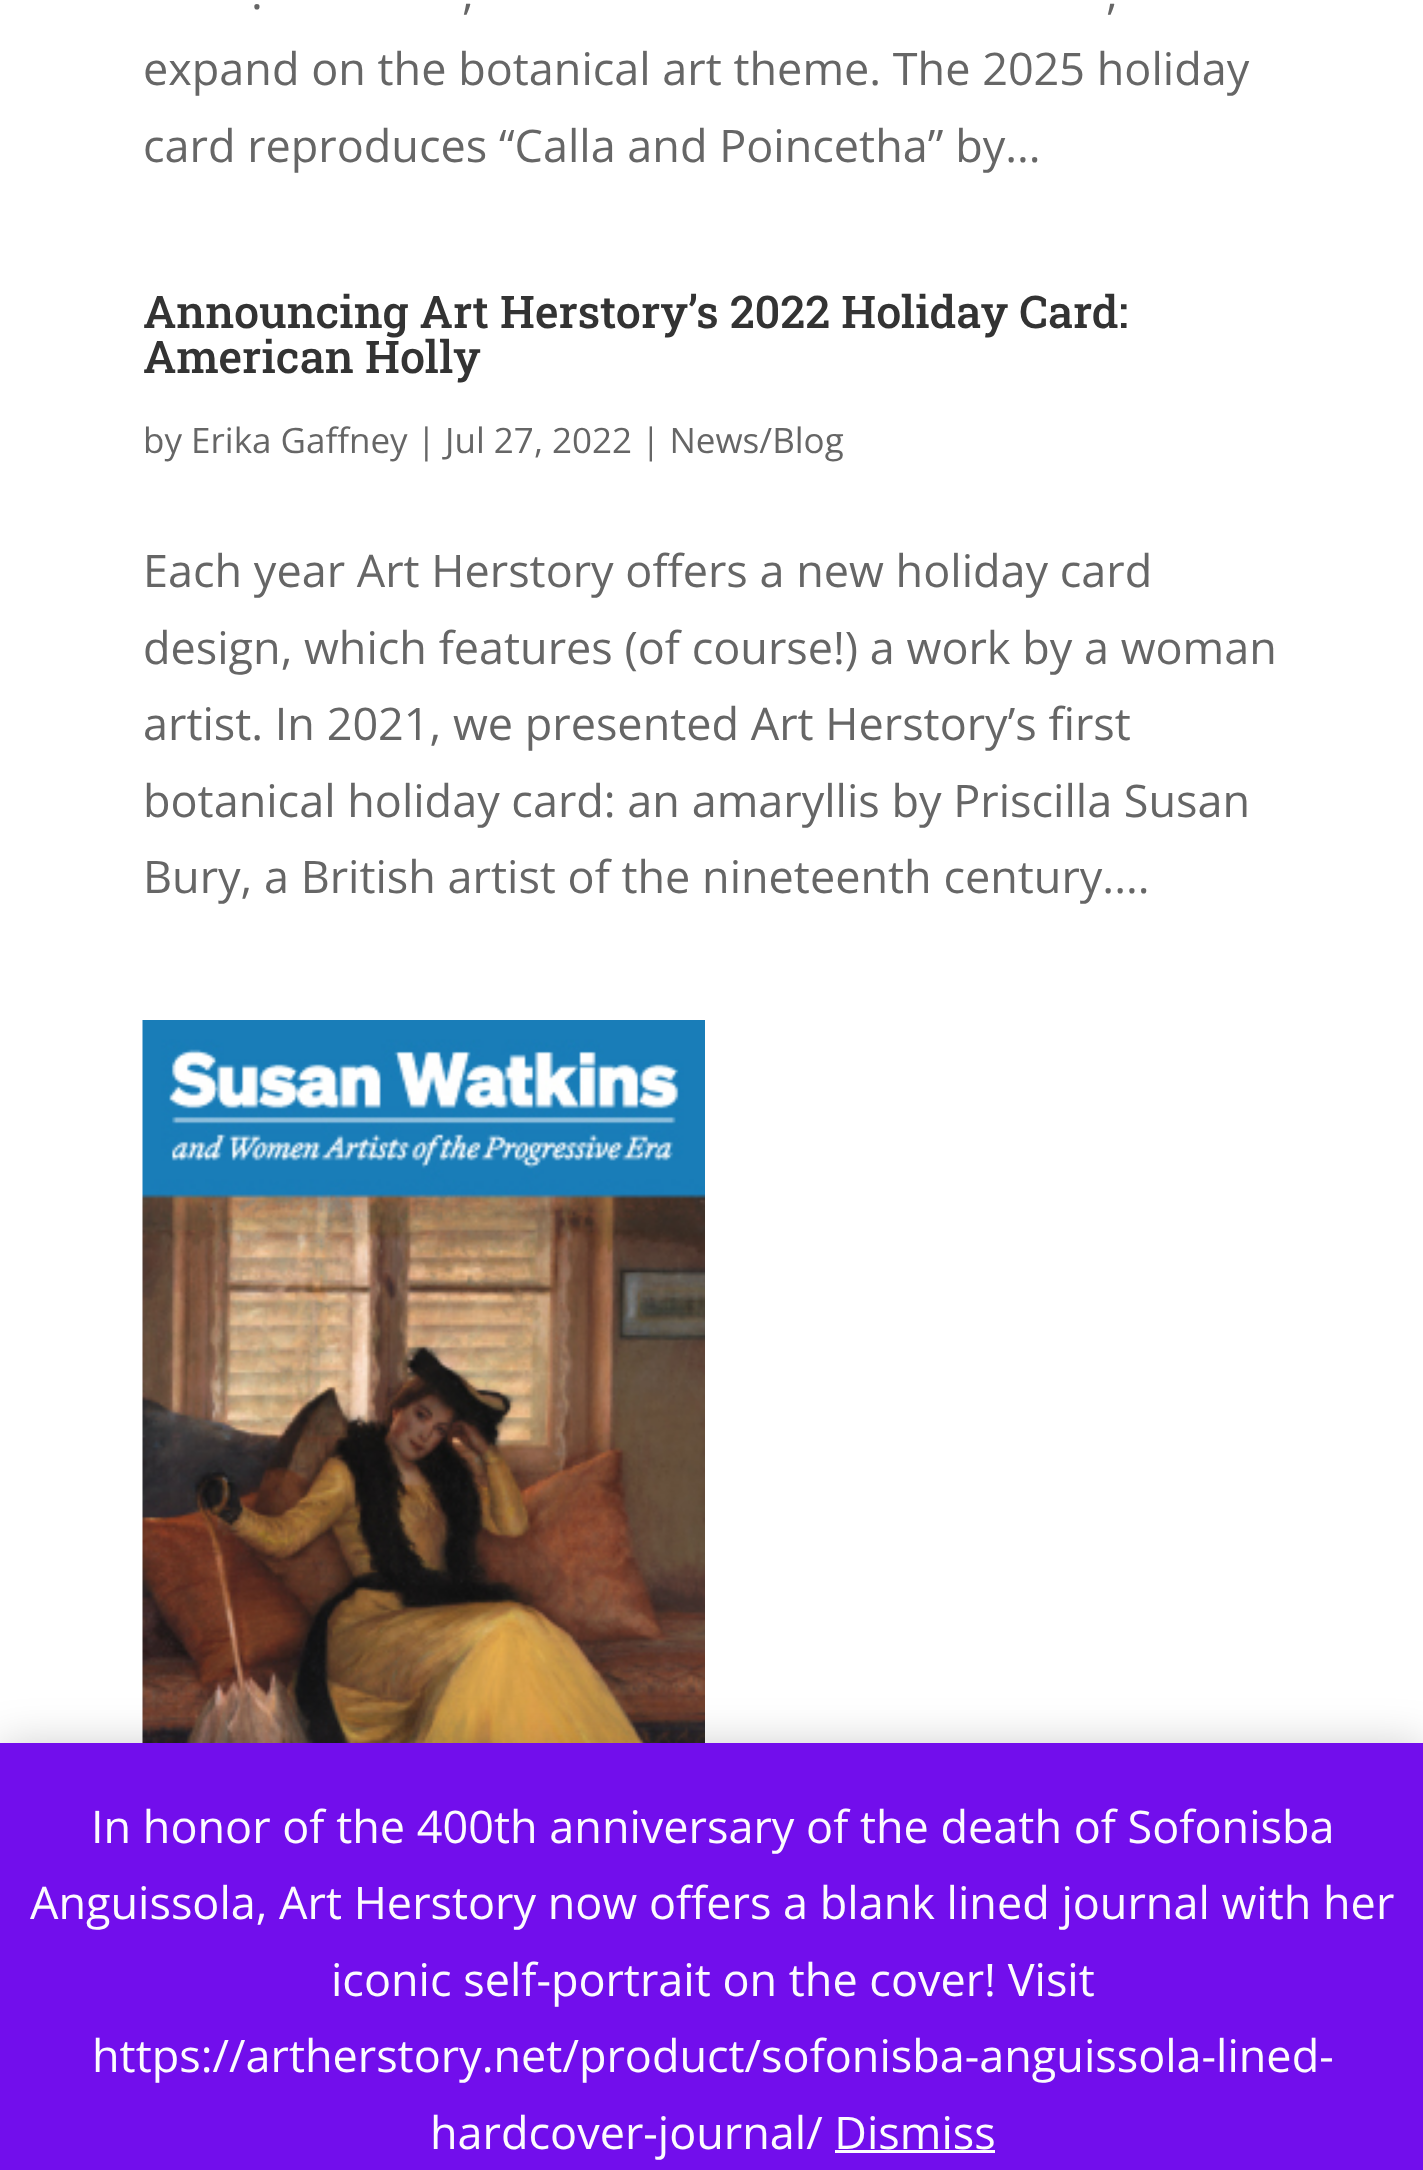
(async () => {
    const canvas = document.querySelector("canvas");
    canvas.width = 1423;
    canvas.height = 2170;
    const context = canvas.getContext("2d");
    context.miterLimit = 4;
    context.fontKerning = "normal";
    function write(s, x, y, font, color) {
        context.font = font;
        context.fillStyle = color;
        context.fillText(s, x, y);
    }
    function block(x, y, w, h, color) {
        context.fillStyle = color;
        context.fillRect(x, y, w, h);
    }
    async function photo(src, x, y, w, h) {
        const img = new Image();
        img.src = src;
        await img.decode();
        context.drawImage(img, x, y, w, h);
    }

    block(0, 0, 1423, 2170, "rgb(255, 255, 255)");
    write(".", 251, 9, "45px Open Sans", "rgb(102, 102, 102)");
    write(",", 462, 9, "45px Open Sans", "rgb(102, 102, 102)");
    write(",", 1106, 9, "45px Open Sans", "rgb(102, 102, 102)");
    write("expand on the botanical art theme. The 2025 holiday", 143, 85, "45px Open Sans", "rgb(102, 102, 102)");
    write("card reproduces “Calla and Poincetha” by...", 143, 162, "45px Open Sans", "rgb(102, 102, 102)");
    write("Announcing Art Herstory’s 2022 Holiday Card:", 143, 328, "500 45px Roboto Slab", "rgb(51, 51, 51)");
    write("American Holly", 143, 373, "500 45px Roboto Slab", "rgb(51, 51, 51)");
    write("by Erika Gaffney | Jul 27, 2022 | News/Blog", 143, 453, "35px Open Sans", "rgb(102, 102, 102)");
    write("Each year Art Herstory offers a new holiday card", 143, 587, "45px Open Sans", "rgb(102, 102, 102)");
    write("design, which features (of course!) a work by a woman", 143, 664, "45px Open Sans", "rgb(102, 102, 102)");
    write("artist. In 2021, we presented Art Herstory’s first", 143, 740, "45px Open Sans", "rgb(102, 102, 102)");
    write("botanical holiday card: an amaryllis by Priscilla Susan", 143, 817, "45px Open Sans", "rgb(102, 102, 102)");
    write("Bury, a British artist of the nineteenth century....", 143, 893, "45px Open Sans", "rgb(102, 102, 102)");
    await photo("media/1.png", 142, 1020, 563, 723);
    context.fillStyle = "rgba(0, 0, 0, 0.2)";
    context.filter = "blur(22.5px)";
    context.beginPath();
    context.rect(0, 1745, 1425, 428);
    context.fill();
    context.filter = "none";
    block(0, 1743, 1423, 427, "rgb(114, 14, 236)");
    write("In honor of the 400th anniversary of the death of Sofonisba", 91, 1843, "45px Open Sans", "rgb(252, 251, 254)");
    write("Anguissola, Art Herstory now offers a blank lined journal with her", 30, 1919, "45px Open Sans", "rgb(252, 251, 254)");
    write("iconic self-portrait on the cover! Visit", 331, 1996, "45px Open Sans", "rgb(252, 251, 254)");
    write("https://artherstory.net/product/sofonisba-anguissola-lined-", 92, 2072, "45px Open Sans", "rgb(252, 251, 254)");
    write("hardcover-journal/ Dismiss", 430, 2149, "45px Open Sans", "rgb(252, 251, 254)");
    block(835, 2150, 160, 3, "rgb(252, 251, 254)");
})();
